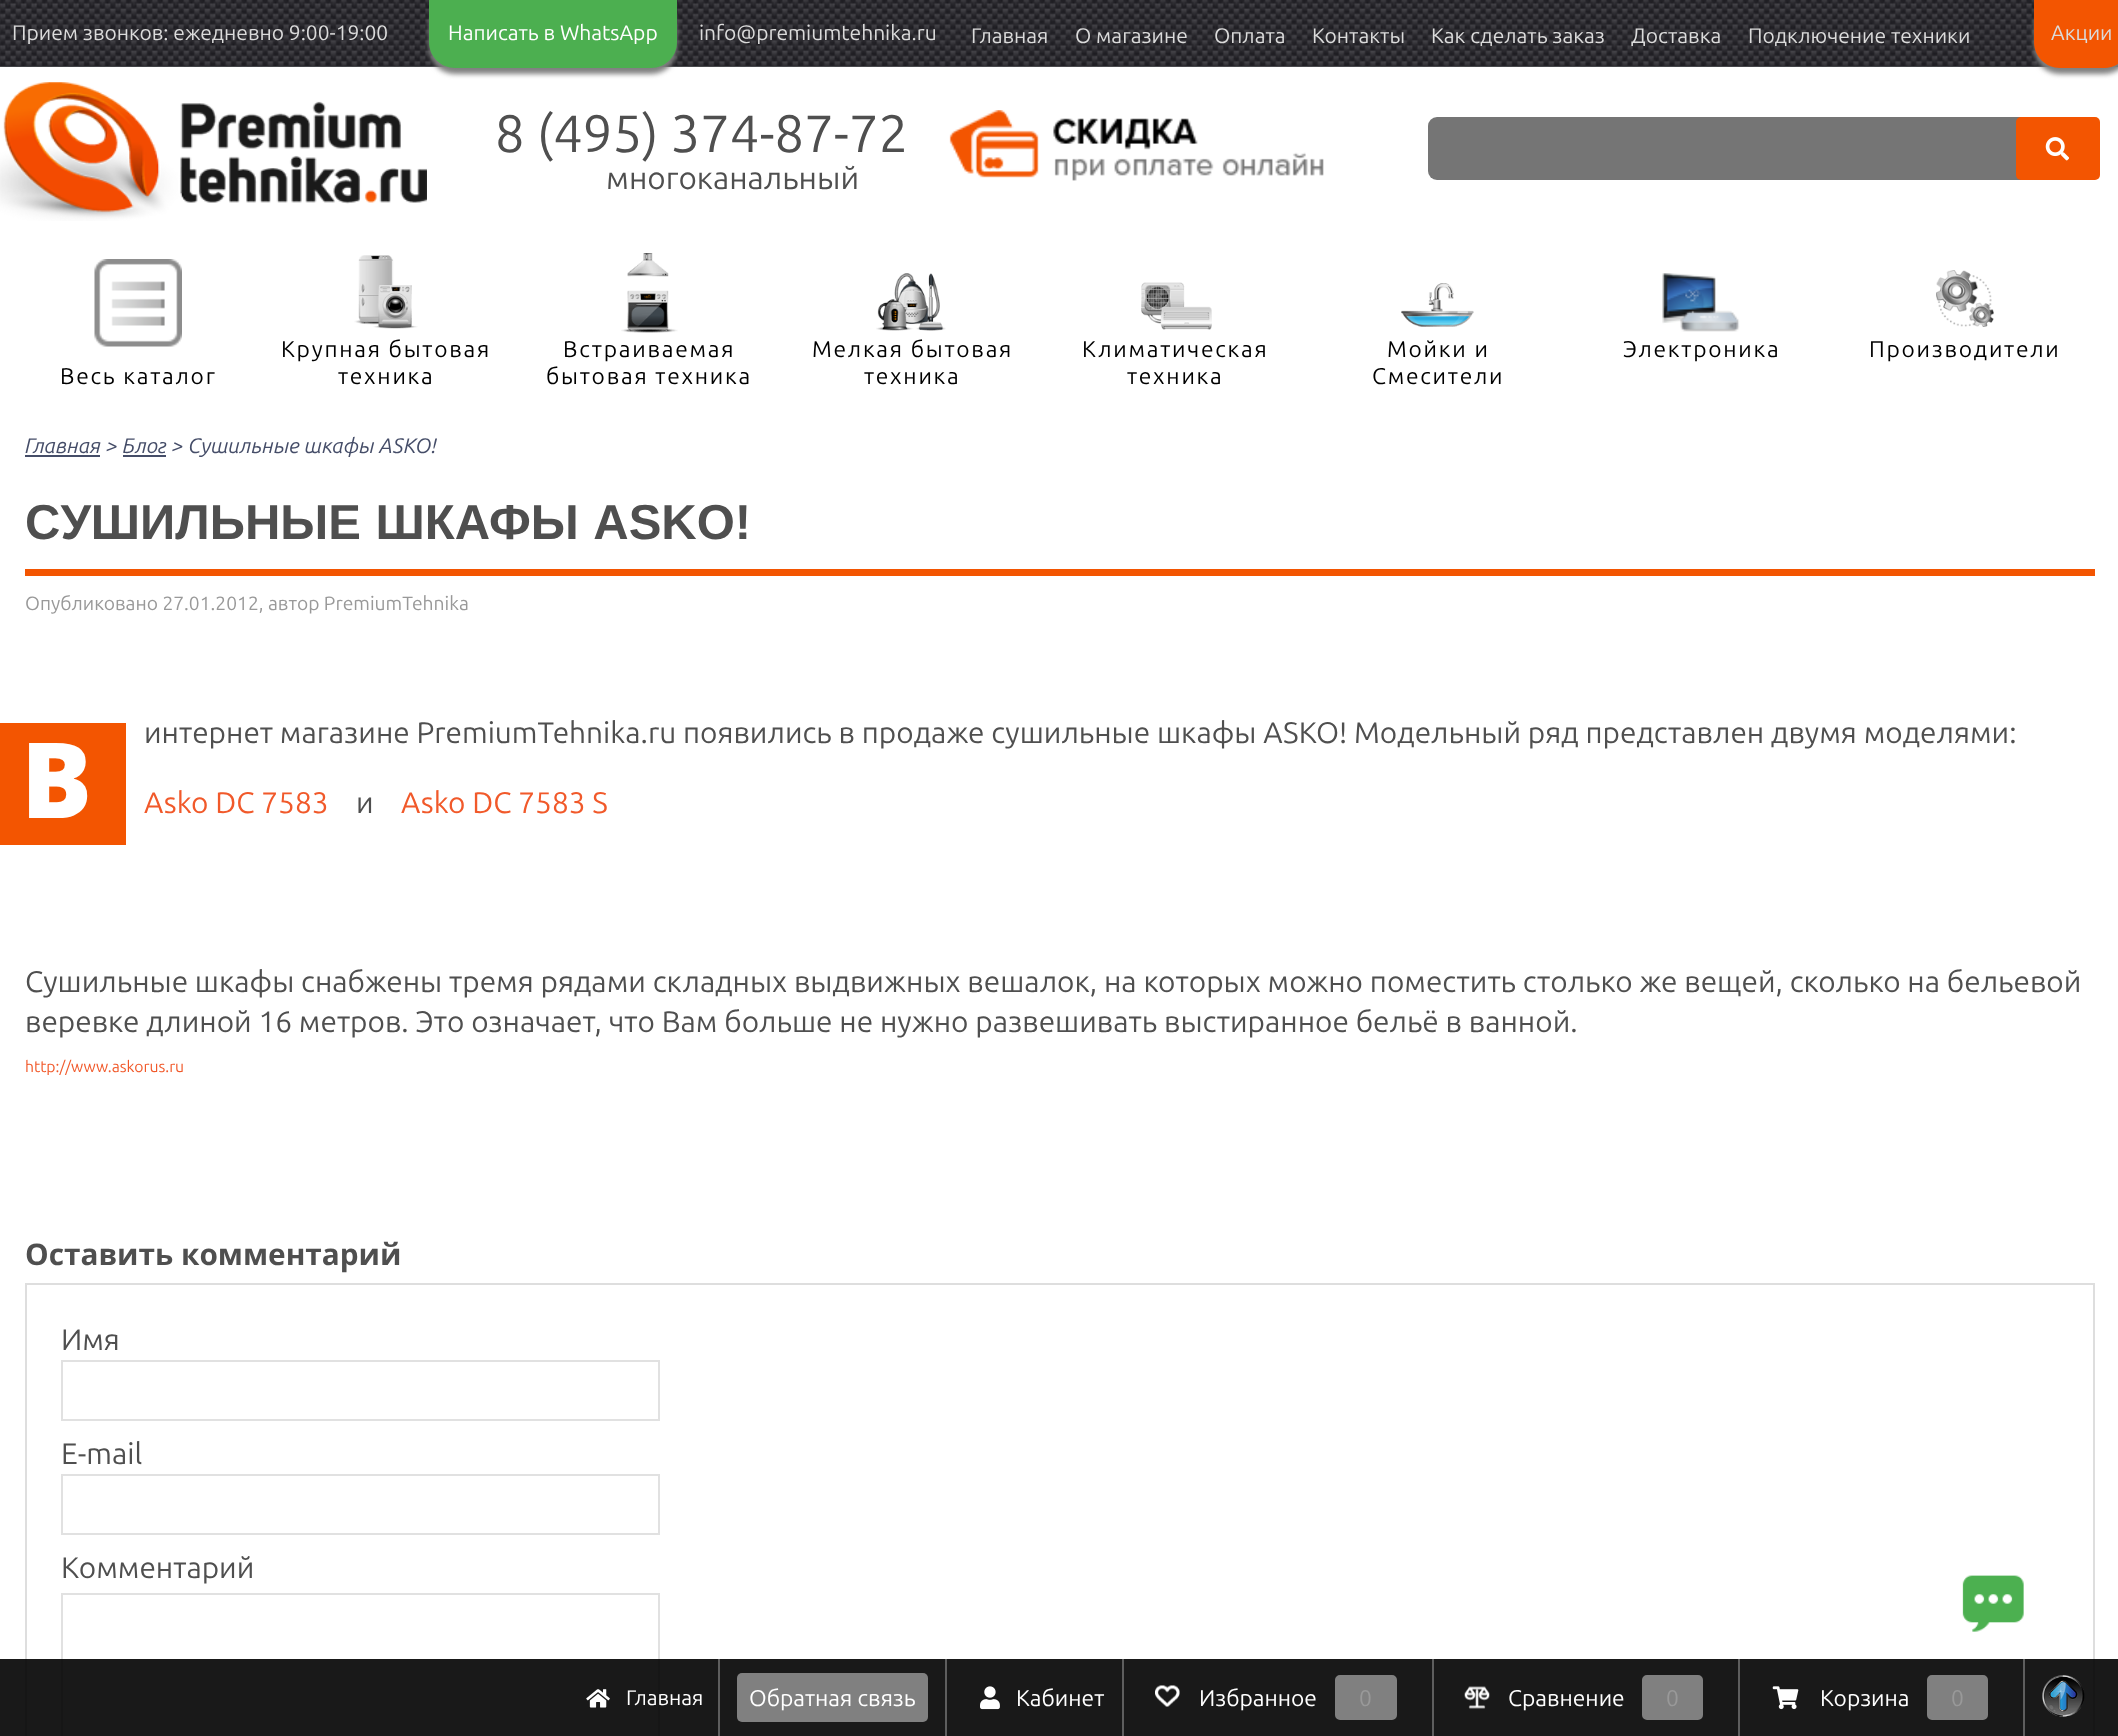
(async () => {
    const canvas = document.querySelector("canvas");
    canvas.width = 2118;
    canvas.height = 1736;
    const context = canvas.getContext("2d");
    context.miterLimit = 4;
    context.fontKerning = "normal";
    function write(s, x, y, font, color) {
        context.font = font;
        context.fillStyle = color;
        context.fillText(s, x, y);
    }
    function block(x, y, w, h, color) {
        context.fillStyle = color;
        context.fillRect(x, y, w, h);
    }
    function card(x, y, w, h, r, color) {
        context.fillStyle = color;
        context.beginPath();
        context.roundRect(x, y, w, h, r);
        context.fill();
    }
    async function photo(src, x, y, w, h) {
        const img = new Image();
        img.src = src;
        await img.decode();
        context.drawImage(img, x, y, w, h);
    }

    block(0, 0, 2118, 1736, "rgb(255, 255, 255)");
    await photo("media/1.png", 0, 66, 2118, 1);
    await photo("media/2.png", 0, 0, 2118, 67);
    write("Прием звонков: ежедневно 9:00-19:00", 12, 40, "21px Ubuntu", "rgb(219, 219, 219)");
    await photo("media/3.png", 0, 82, 427, 139);
    context.fillStyle = "rgb(128, 128, 128)";
    context.filter = "blur(2.5px)";
    context.beginPath();
    context.roundRect(429, 2, 248, 72, 26);
    context.fill();
    context.filter = "none";
    context.fillStyle = "rgb(76, 175, 80)";
    context.beginPath();
    context.moveTo(429, -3);
    context.lineTo(677, -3);
    context.lineTo(677, 42);
    context.bezierCurveTo(677, 56.5, 665.5, 68, 651, 68);
    context.lineTo(455, 68);
    context.bezierCurveTo(440.5, 68, 429, 56.5, 429, 42);
    context.closePath();
    context.fill();
    write("Написать в WhatsApp", 448, 40, "21px Ubuntu", "rgb(255, 255, 255)");
    write("info@premiumtehnika.ru", 699, 40, "21px Ubuntu", "rgb(219, 219, 219)");
    write("Главная", 971, 43, "21px Ubuntu", "rgb(219, 219, 219)");
    write("О магазине", 1075, 43, "21px Ubuntu", "rgb(219, 219, 219)");
    write("Оплата", 1214, 43, "21px Ubuntu", "rgb(219, 219, 219)");
    write("Контакты", 1312, 43, "21px Ubuntu", "rgb(219, 219, 219)");
    write("Как сделать заказ", 1431, 43, "21px Ubuntu", "rgb(219, 219, 219)");
    context.save();
    context.beginPath();
    context.rect(942, 23, 1043, 23);
    context.clip();
    write("Доставка", 1631, 43, "21px Ubuntu", "rgb(219, 219, 219)");
    context.restore();
    write("Подключение техники", 1748, 43, "21px Ubuntu", "rgb(219, 219, 219)");
    context.fillStyle = "rgb(128, 128, 128)";
    context.filter = "blur(2.5px)";
    context.beginPath();
    context.roundRect(2034, 2, 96, 72, 26);
    context.fill();
    context.filter = "none";
    context.fillStyle = "rgb(243, 85, 1)";
    context.beginPath();
    context.moveTo(2034, -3);
    context.lineTo(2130, -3);
    context.lineTo(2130, 42);
    context.bezierCurveTo(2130, 56.5, 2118.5, 68, 2104, 68);
    context.lineTo(2060, 68);
    context.bezierCurveTo(2045.5, 68, 2034, 56.5, 2034, 42);
    context.closePath();
    context.fill();
    write("Акции", 2051, 40, "21px Ubuntu", "rgb(219, 219, 219)");
    write("8 (495) 374-87-72", 495, 152, "52.5px Ubuntu", "rgb(79, 79, 79)");
    write("многоканальный", 606, 189, "31.5px Ubuntu", "rgb(79, 79, 79)");
    await photo("media/4.png", 949, 110, 375, 71);
    card(1428, 117, 672, 63, 9, "rgb(117, 117, 117)");
    card(2016, 117, 84, 63, 5, "rgb(243, 85, 1)");
    await photo("media/5.png", 2045, 137, 24, 24);
    await photo("media/6.png", 354, 255, 64, 74);
    context.letterSpacing = "1.75px";
    write("Крупная бытовая", 281, 357, "22.75px Ubuntu", "rgb(0, 0, 0)");
    write("техника", 338, 384, "22.75px Ubuntu", "rgb(0, 0, 0)");
    await photo("media/7.png", 621, 253, 57, 80);
    write("Встраиваемая", 563, 357, "22.75px Ubuntu", "rgb(0, 0, 0)");
    write("бытовая техника", 546, 384, "22.75px Ubuntu", "rgb(0, 0, 0)");
    await photo("media/8.png", 876, 273, 70, 58);
    write("Мелкая бытовая", 812, 357, "22.75px Ubuntu", "rgb(0, 0, 0)");
    write("техника", 864, 384, "22.75px Ubuntu", "rgb(0, 0, 0)");
    await photo("media/9.png", 1141, 282, 71, 48);
    write("Климатическая", 1082, 357, "22.75px Ubuntu", "rgb(0, 0, 0)");
    write("техника", 1127, 384, "22.75px Ubuntu", "rgb(0, 0, 0)");
    await photo("media/10.png", 1401, 283, 73, 44);
    write("Мойки и", 1387, 357, "22.75px Ubuntu", "rgb(0, 0, 0)");
    write("Смесители", 1372, 384, "22.75px Ubuntu", "rgb(0, 0, 0)");
    await photo("media/11.png", 1662, 273, 78, 59);
    write("Электроника", 1623, 357, "22.75px Ubuntu", "rgb(0, 0, 0)");
    await photo("media/12.png", 1936, 270, 58, 57);
    write("Производители", 1869, 357, "22.75px Ubuntu", "rgb(0, 0, 0)");
    await photo("media/13.png", 94, 259, 88, 88);
    write("Весь каталог", 60, 384, "22.75px Ubuntu", "rgb(0, 0, 0)");
    block(25, 455, 75, 2, "rgb(69, 77, 104)");
    context.letterSpacing = "0px";
    write("Главная > Блог > Cушильные шкафы ASKO!", 25, 453, "italic 21px Ubuntu", "rgb(69, 77, 104)");
    block(123, 455, 43, 2, "rgb(69, 77, 104)");
    block(25, 569, 2070, 7, "rgb(243, 85, 1)");
    context.wordSpacing = "1px";
    write("CУШИЛЬНЫЕ ШКАФЫ ASKO!", 25, 539, "bold 49px Liberation Sans", "rgb(79, 79, 79)");
    context.wordSpacing = "0px";
    write("Опубликовано 27.01.2012, автор PremiumTehnika", 25, 610, "19.25px Ubuntu", "rgb(153, 153, 153)");
    write("интернет магазине PremiumTehnika.ru появились в продаже сушильные шкафы ASKO! Модельный ряд представлен двумя моделями:", 144, 743, "29.75px Ubuntu", "rgb(79, 79, 79)");
    write("Asko DC 7583", 144, 813, "29.75px Ubuntu", "rgb(241, 89, 42)");
    write("и", 356, 813, "29.75px Ubuntu", "rgb(79, 79, 79)");
    write("Asko DC 7583 S", 401, 813, "29.75px Ubuntu", "rgb(241, 89, 42)");
    write("Cушильные шкафы снабжены тремя рядами складных выдвижных вешалок, на которых можно поместить столько же вещей, сколько на бельевой", 25, 992, "29.75px Ubuntu", "rgb(79, 79, 79)");
    write("веревке длиной 16 метров. Это означает, что Вам больше не нужно развешивать выстиранное бельё в ванной.", 25, 1032, "29.75px Ubuntu", "rgb(79, 79, 79)");
    write("http://www.askorus.ru", 25, 1072, "15.75px Ubuntu", "rgb(241, 89, 42)");
    block(0, 723, 126, 122, "rgb(243, 85, 1)");
    write("В", 21, 818, "900 105px Noto Sans", "rgb(255, 255, 255)");
    write("Оставить комментарий", 25, 1265, "bold 29.75px Open Sans", "rgb(79, 79, 79)");
    context.strokeStyle = "rgb(222, 222, 222)";
    context.lineWidth = 2;
    context.strokeRect(26, 1284, 2068, 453);
    write("Имя", 61, 1350, "29.75px Ubuntu", "rgb(79, 79, 79)");
    context.strokeStyle = "rgb(225, 225, 225)";
    context.strokeRect(62, 1361, 597, 59);
    write("E-mail", 61, 1464, "29.75px Ubuntu", "rgb(79, 79, 79)");
    context.strokeRect(62, 1475, 597, 59);
    write("Комментарий", 61, 1578, "29.75px Ubuntu", "rgb(79, 79, 79)");
    context.strokeRect(62, 1594, 597, 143);
    await photo("media/14.png", 1962, 1575, 62, 57);
    block(0, 1659, 2118, 77, "rgba(0, 0, 0, 0.9)");
    await photo("media/15.png", 586, 1689, 24, 19);
    write("Главная", 626, 1705, "21px Ubuntu", "rgb(255, 255, 255)");
    block(718, 1659, 2, 77, "rgb(94, 94, 94)");
    card(737, 1673, 191, 49, 5, "rgb(128, 128, 128)");
    write("Обратная связь", 749, 1706, "22.75px Ubuntu", "rgb(255, 255, 255)");
    block(945, 1659, 2, 77, "rgb(94, 94, 94)");
    await photo("media/16.png", 980, 1686, 20, 24);
    write("Кабинет", 1016, 1706, "22.75px Ubuntu", "rgb(255, 255, 255)");
    block(1122, 1659, 2, 77, "rgb(94, 94, 94)");
    await photo("media/17.png", 1155, 1685, 25, 22);
    write("Избранное", 1199, 1706, "22.75px Ubuntu", "rgb(255, 255, 255)");
    context.fillStyle = "rgb(128, 128, 128)";
    context.beginPath();
    context.roundRect(1336, 1676, 60, 43, 4);
    context.fill();
    context.strokeStyle = "rgb(128, 128, 128)";
    context.stroke();
    write("0", 1359, 1706, "22.75px Ubuntu", "rgb(153, 153, 153)");
    block(1432, 1659, 2, 77, "rgb(94, 94, 94)");
    await photo("media/18.png", 1464, 1686, 26, 23);
    write("Сравнение", 1508, 1706, "22.75px Ubuntu", "rgb(255, 255, 255)");
    context.fillStyle = "rgb(128, 128, 128)";
    context.beginPath();
    context.roundRect(1643, 1676, 59, 43, 4);
    context.fill();
    context.stroke();
    write("0", 1666, 1706, "22.75px Ubuntu", "rgb(153, 153, 153)");
    block(1738, 1659, 2, 77, "rgb(94, 94, 94)");
    await photo("media/19.png", 1772, 1686, 27, 24);
    write("Корзина", 1820, 1706, "22.75px Ubuntu", "rgb(255, 255, 255)");
    context.fillStyle = "rgb(128, 128, 128)";
    context.beginPath();
    context.roundRect(1928, 1676, 59, 43, 4);
    context.fill();
    context.stroke();
    write("0", 1951, 1706, "22.75px Ubuntu", "rgb(153, 153, 153)");
    block(2023, 1659, 2, 77, "rgb(94, 94, 94)");
    await photo("media/20.png", 2042, 1675, 43, 42);
})();
